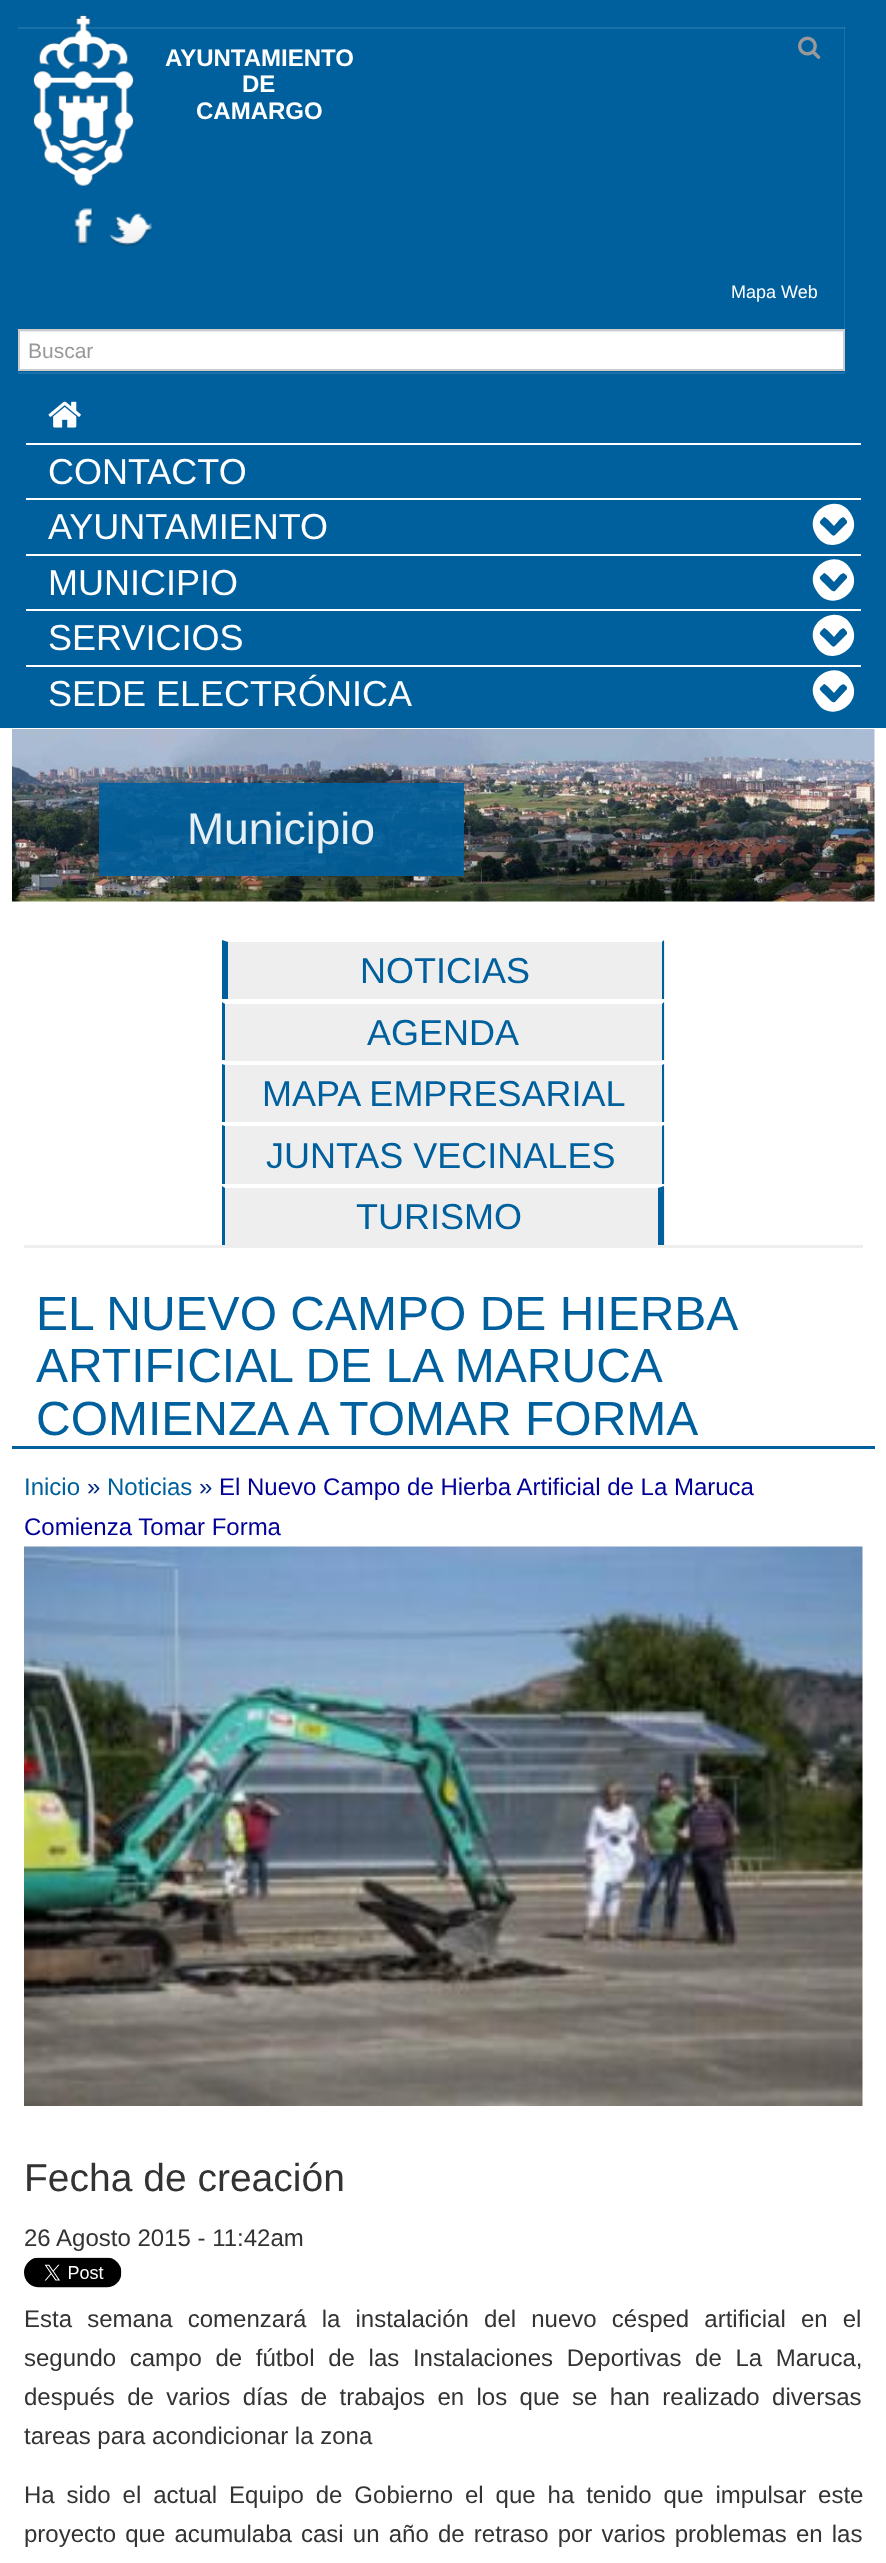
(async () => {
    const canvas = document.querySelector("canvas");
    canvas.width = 886;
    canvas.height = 2563;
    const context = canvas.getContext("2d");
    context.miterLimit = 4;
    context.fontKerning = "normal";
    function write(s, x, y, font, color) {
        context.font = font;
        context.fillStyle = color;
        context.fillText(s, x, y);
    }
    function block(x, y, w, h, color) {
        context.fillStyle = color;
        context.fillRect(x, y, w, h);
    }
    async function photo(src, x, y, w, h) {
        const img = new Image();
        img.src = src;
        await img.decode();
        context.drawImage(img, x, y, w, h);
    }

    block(0, 0, 886, 2563, "rgb(0, 96, 158)");
    block(0, 728, 886, 1835, "rgb(255, 255, 255)");
    await photo("media/1.png", 33, 15, 101, 171);
    write("AYUNTAMIENTO", 165, 66, "bold 24px Liberation Sans", "rgb(255, 255, 255)");
    write("DE", 242, 92, "bold 24px Liberation Sans", "rgb(255, 255, 255)");
    write("CAMARGO", 196, 119, "bold 24px Liberation Sans", "rgb(255, 255, 255)");
    await photo("media/2.png", 74, 208, 19, 38);
    await photo("media/3.png", 109, 212, 44, 35);
    write("Mapa Web", 731, 298, "18px Liberation Sans", "rgb(255, 255, 255)");
    context.fillStyle = "rgb(26, 112, 168)";
    context.beginPath();
    context.moveTo(18, 372);
    context.lineTo(18, 374);
    context.lineTo(845, 374);
    context.lineTo(845, 27);
    context.lineTo(844, 27);
    context.lineTo(844, 372);
    context.closePath();
    context.fill();
    block(18, 27, 827, 2, "rgba(255, 255, 255, 0.1)");
    await photo("media/4.png", 798, 36, 23, 23);
    block(20, 332, 823, 37, "rgb(255, 255, 255)");
    block(20, 331, 823, 1, "rgb(236, 236, 236)");
    context.strokeStyle = "rgb(204, 204, 204)";
    context.lineWidth = 2;
    context.strokeRect(19, 330, 825, 40);
    write("Buscar", 28, 358, "21px Liberation Sans", "rgb(153, 153, 153)");
    await photo("media/5.png", 48, 401, 33, 27);
    block(26, 443, 835, 2, "rgb(255, 255, 255)");
    write("CONTACTO", 48, 484, "36px Liberation Sans", "rgb(255, 255, 255)");
    block(26, 498, 835, 2, "rgb(255, 255, 255)");
    write("AYUNTAMIENTO", 48, 539, "36px Liberation Sans", "rgb(255, 255, 255)");
    context.beginPath();
    context.moveTo(835, 535);
    context.lineTo(847, 523);
    context.lineTo(847, 521);
    context.bezierCurveTo(844, 517, 844, 516, 840, 519);
    context.lineTo(834, 526);
    context.bezierCurveTo(832, 524, 826, 517, 824, 517);
    context.lineTo(822, 519);
    context.bezierCurveTo(818, 523, 820, 523, 824, 527);
    context.lineTo(830, 533);
    context.bezierCurveTo(831, 534, 833, 537, 835, 535);
    context.closePath();
    context.moveTo(851, 514);
    context.bezierCurveTo(865, 537, 829, 558, 816, 535);
    context.bezierCurveTo(802, 511, 838, 491, 851, 514);
    context.closePath();
    context.fill();
    block(26, 554, 835, 2, "rgb(255, 255, 255)");
    write("MUNICIPIO", 48, 595, "36px Liberation Sans", "rgb(255, 255, 255)");
    context.beginPath();
    context.moveTo(835, 591);
    context.lineTo(847, 578);
    context.lineTo(847, 576);
    context.bezierCurveTo(844, 573, 844, 572, 840, 575);
    context.lineTo(834, 582);
    context.bezierCurveTo(832, 580, 826, 573, 824, 573);
    context.lineTo(822, 575);
    context.bezierCurveTo(818, 578, 820, 579, 824, 583);
    context.lineTo(830, 589);
    context.bezierCurveTo(831, 590, 833, 592, 835, 591);
    context.closePath();
    context.moveTo(851, 570);
    context.bezierCurveTo(865, 593, 829, 614, 816, 590);
    context.bezierCurveTo(802, 567, 838, 546, 851, 570);
    context.closePath();
    context.fill();
    block(26, 609, 835, 2, "rgb(255, 255, 255)");
    write("SERVICIOS", 48, 650, "36px Liberation Sans", "rgb(255, 255, 255)");
    context.beginPath();
    context.moveTo(835, 646);
    context.lineTo(847, 634);
    context.lineTo(847, 632);
    context.bezierCurveTo(844, 628, 844, 627, 840, 630);
    context.lineTo(834, 637);
    context.bezierCurveTo(832, 635, 826, 628, 824, 628);
    context.lineTo(822, 630);
    context.bezierCurveTo(818, 634, 820, 634, 824, 638);
    context.lineTo(830, 644);
    context.bezierCurveTo(831, 645, 833, 648, 835, 646);
    context.closePath();
    context.moveTo(851, 625);
    context.bezierCurveTo(865, 648, 829, 669, 816, 646);
    context.bezierCurveTo(802, 622, 838, 602, 851, 625);
    context.closePath();
    context.fill();
    block(26, 665, 835, 2, "rgb(255, 255, 255)");
    write("SEDE ELECTRÓNICA", 48, 706, "36px Liberation Sans", "rgb(255, 255, 255)");
    context.beginPath();
    context.moveTo(835, 702);
    context.lineTo(847, 689);
    context.lineTo(847, 687);
    context.bezierCurveTo(844, 684, 844, 683, 840, 686);
    context.lineTo(834, 693);
    context.bezierCurveTo(832, 691, 826, 684, 824, 684);
    context.lineTo(822, 686);
    context.bezierCurveTo(818, 689, 820, 690, 824, 694);
    context.lineTo(830, 700);
    context.bezierCurveTo(831, 701, 833, 703, 835, 702);
    context.closePath();
    context.moveTo(851, 681);
    context.bezierCurveTo(865, 704, 829, 725, 816, 701);
    context.bezierCurveTo(802, 678, 838, 657, 851, 681);
    context.closePath();
    context.fill();
    await photo("media/6.png", 12, 729, 863, 173);
    block(99, 783, 365, 93, "rgba(0, 96, 158, 0.9)");
    write("Municipio", 187, 844, "44.5px Liberation Sans", "rgb(230, 239, 244)");
    block(24, 1245, 839, 3, "rgb(238, 238, 238)");
    block(225, 941, 440, 58, "rgb(238, 238, 238)");
    context.fillStyle = "rgb(255, 255, 255)";
    context.beginPath();
    context.moveTo(222, 940);
    context.lineTo(664, 940);
    context.lineTo(662, 942);
    context.lineTo(228, 942);
    context.closePath();
    context.fill();
    context.fillStyle = "rgb(0, 96, 158)";
    context.beginPath();
    context.moveTo(664, 940);
    context.lineTo(664, 999);
    context.lineTo(662, 999);
    context.lineTo(662, 942);
    context.closePath();
    context.fill();
    context.beginPath();
    context.moveTo(222, 999);
    context.lineTo(222, 940);
    context.lineTo(228, 942);
    context.lineTo(228, 999);
    context.closePath();
    context.fill();
    write("NOTICIAS", 360, 983, "36px Liberation Sans", "rgb(0, 96, 158)");
    block(222, 1002, 443, 59, "rgb(238, 238, 238)");
    context.fillStyle = "rgb(255, 255, 255)";
    context.beginPath();
    context.moveTo(222, 1002);
    context.lineTo(664, 1002);
    context.lineTo(662, 1004);
    context.lineTo(225, 1004);
    context.closePath();
    context.fill();
    context.fillStyle = "rgb(0, 96, 158)";
    context.beginPath();
    context.moveTo(664, 1002);
    context.lineTo(664, 1060);
    context.lineTo(662, 1060);
    context.lineTo(662, 1004);
    context.closePath();
    context.fill();
    context.beginPath();
    context.moveTo(222, 1060);
    context.lineTo(222, 1002);
    context.lineTo(225, 1004);
    context.lineTo(225, 1060);
    context.closePath();
    context.fill();
    write("AGENDA", 367, 1045, "36px Liberation Sans", "rgb(0, 96, 158)");
    block(222, 1064, 443, 58, "rgb(238, 238, 238)");
    context.fillStyle = "rgb(255, 255, 255)";
    context.beginPath();
    context.moveTo(222, 1064);
    context.lineTo(664, 1064);
    context.lineTo(662, 1065);
    context.lineTo(225, 1065);
    context.closePath();
    context.fill();
    context.fillStyle = "rgb(0, 96, 158)";
    context.beginPath();
    context.moveTo(664, 1064);
    context.lineTo(664, 1122);
    context.lineTo(662, 1122);
    context.lineTo(662, 1065);
    context.closePath();
    context.fill();
    context.beginPath();
    context.moveTo(222, 1122);
    context.lineTo(222, 1064);
    context.lineTo(225, 1065);
    context.lineTo(225, 1122);
    context.closePath();
    context.fill();
    write("MAPA EMPRESARIAL", 262, 1106, "36px Liberation Sans", "rgb(0, 96, 158)");
    block(222, 1125, 443, 59, "rgb(238, 238, 238)");
    context.fillStyle = "rgb(255, 255, 255)";
    context.beginPath();
    context.moveTo(222, 1125);
    context.lineTo(664, 1125);
    context.lineTo(662, 1126);
    context.lineTo(225, 1126);
    context.closePath();
    context.fill();
    context.fillStyle = "rgb(0, 96, 158)";
    context.beginPath();
    context.moveTo(664, 1125);
    context.lineTo(664, 1184);
    context.lineTo(662, 1184);
    context.lineTo(662, 1126);
    context.closePath();
    context.fill();
    context.beginPath();
    context.moveTo(222, 1184);
    context.lineTo(222, 1125);
    context.lineTo(225, 1126);
    context.lineTo(225, 1184);
    context.closePath();
    context.fill();
    write("JUNTAS VECINALES", 266, 1168, "36px Liberation Sans", "rgb(0, 96, 158)");
    block(223, 1187, 442, 58, "rgb(238, 238, 238)");
    context.fillStyle = "rgb(255, 255, 255)";
    context.beginPath();
    context.moveTo(222, 1186);
    context.lineTo(664, 1186);
    context.lineTo(658, 1188);
    context.lineTo(225, 1188);
    context.closePath();
    context.fill();
    context.fillStyle = "rgb(0, 96, 158)";
    context.beginPath();
    context.moveTo(664, 1186);
    context.lineTo(664, 1245);
    context.lineTo(658, 1245);
    context.lineTo(658, 1188);
    context.closePath();
    context.fill();
    context.beginPath();
    context.moveTo(222, 1245);
    context.lineTo(222, 1186);
    context.lineTo(225, 1188);
    context.lineTo(225, 1245);
    context.closePath();
    context.fill();
    write("TURISMO", 356, 1229, "36px Liberation Sans", "rgb(0, 96, 158)");
    block(12, 1446, 863, 3, "rgb(0, 96, 158)");
    write("EL NUEVO CAMPO DE HIERBA", 36, 1330, "48px Liberation Sans", "rgb(0, 96, 158)");
    write("ARTIFICIAL DE LA MARUCA", 36, 1382, "48px Liberation Sans", "rgb(0, 96, 158)");
    write("COMIENZA A TOMAR FORMA", 36, 1435, "48px Liberation Sans", "rgb(0, 96, 158)");
    write("Inicio", 24, 1495, "24px Liberation Sans", "rgb(0, 96, 158)");
    write("»", 87, 1495, "24px Liberation Sans", "rgb(0, 42, 128)");
    write("Noticias", 107, 1495, "24px Liberation Sans", "rgb(0, 96, 158)");
    write("»", 199, 1495, "24px Liberation Sans", "rgb(0, 42, 128)");
    write("El Nuevo Campo de Hierba Artificial de La Maruca", 219, 1495, "24px Liberation Sans", "rgb(0, 0, 153)");
    write("Comienza Tomar Forma", 24, 1535, "24px Liberation Sans", "rgb(0, 0, 153)");
    await photo("media/7.png", 24, 1546, 839, 560);
    write("Fecha de creación", 24, 2191, "39px Liberation Sans", "rgb(51, 51, 51)");
    write("26 Agosto 2015 - 11:42am", 24, 2246, "24px Liberation Sans", "rgb(51, 51, 51)");
    await photo("media/8.png", 24, 2257, 98, 31);
    context.wordSpacing = "8.5px";
    write("Esta semana comenzará la instalación del nuevo césped artificial en el", 24, 2327, "24px Liberation Sans", "rgb(51, 51, 51)");
    context.wordSpacing = "7px";
    write("segundo campo de fútbol de las Instalaciones Deportivas de La Maruca,", 24, 2366, "24px Liberation Sans", "rgb(51, 51, 51)");
    context.wordSpacing = "5.75px";
    write("después de varios días de trabajos en los que se han realizado diversas", 24, 2405, "24px Liberation Sans", "rgb(51, 51, 51)");
    context.wordSpacing = "0px";
    write("tareas para acondicionar la zona", 24, 2444, "24px Liberation Sans", "rgb(51, 51, 51)");
    context.wordSpacing = "5.25px";
    write("Ha sido el actual Equipo de Gobierno el que ha tenido que impulsar este", 24, 2503, "24px Liberation Sans", "rgb(51, 51, 51)");
    context.wordSpacing = "2.5px";
    write("proyecto que acumulaba casi un año de retraso por varios problemas en las", 24, 2542, "24px Liberation Sans", "rgb(51, 51, 51)");
})();
